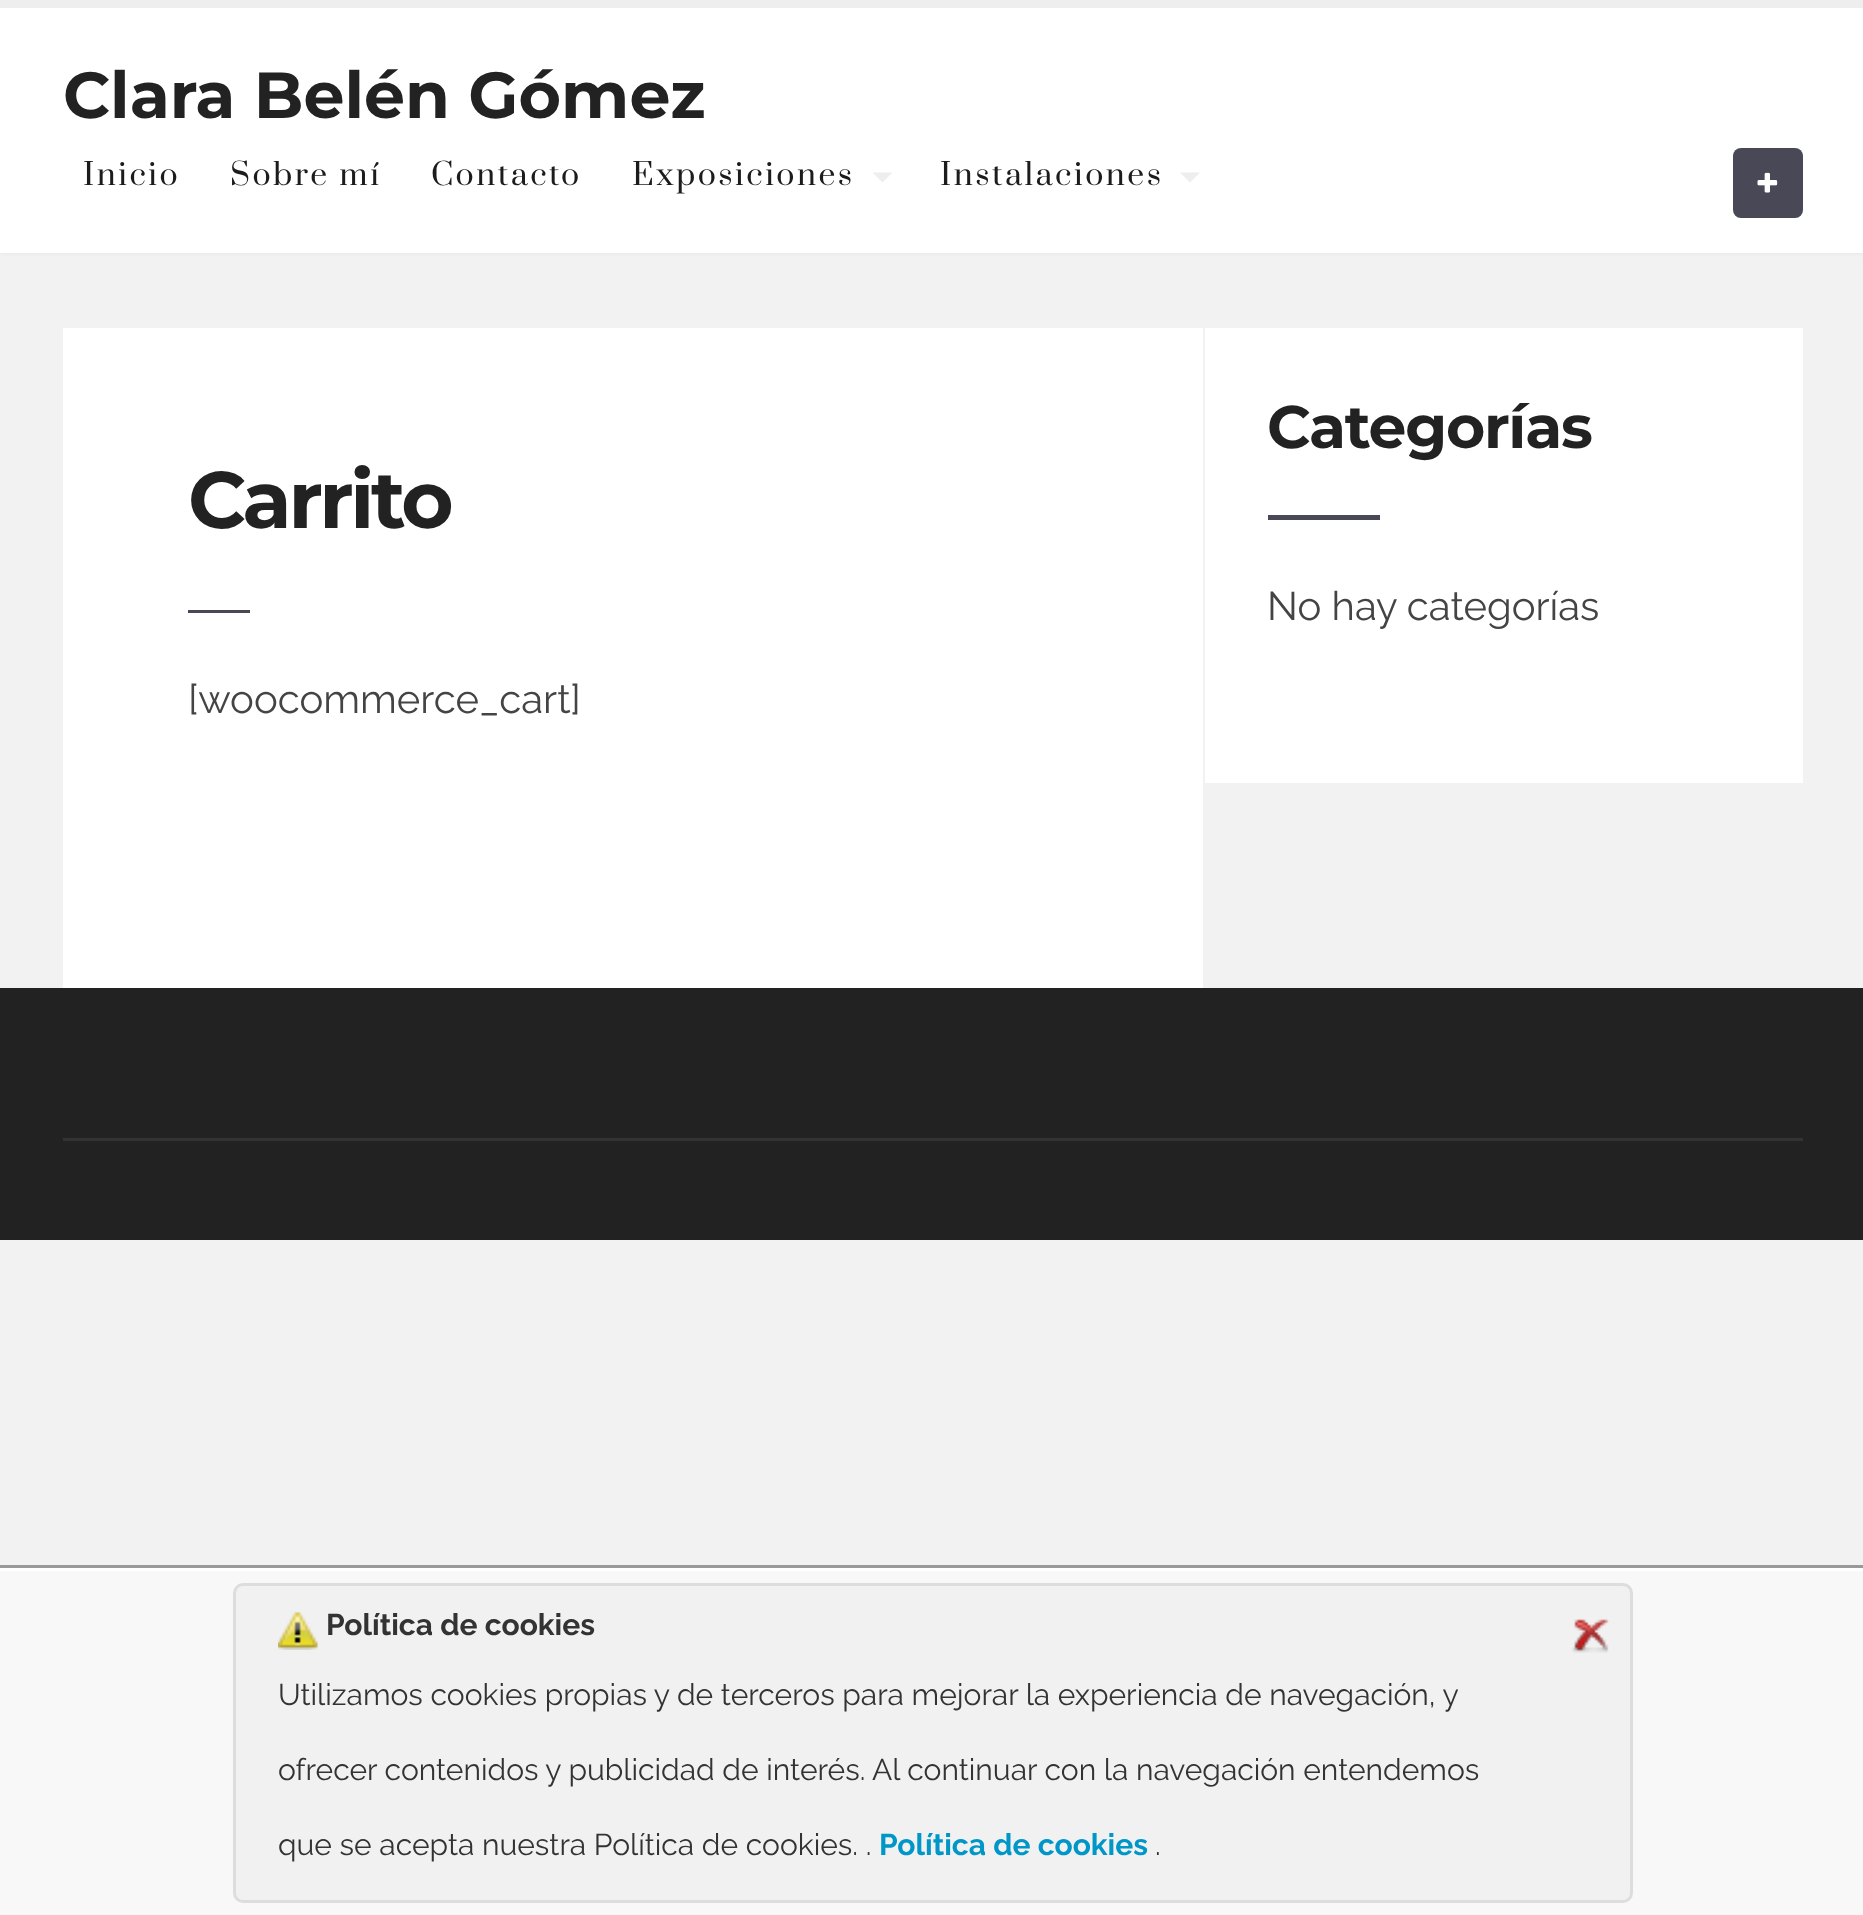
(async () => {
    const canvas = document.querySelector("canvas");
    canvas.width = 1863;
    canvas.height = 1915;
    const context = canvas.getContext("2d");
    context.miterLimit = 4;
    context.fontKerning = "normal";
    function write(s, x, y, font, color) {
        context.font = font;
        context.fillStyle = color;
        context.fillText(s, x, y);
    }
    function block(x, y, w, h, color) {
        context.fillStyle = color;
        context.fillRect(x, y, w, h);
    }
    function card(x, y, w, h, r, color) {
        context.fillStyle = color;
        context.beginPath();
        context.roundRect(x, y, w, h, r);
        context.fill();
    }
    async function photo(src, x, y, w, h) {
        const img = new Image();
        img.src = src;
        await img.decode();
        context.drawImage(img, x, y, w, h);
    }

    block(0, 0, 1863, 1915, "rgb(242, 242, 242)");
    context.fillStyle = "rgba(0, 0, 0, 0.05)";
    context.filter = "blur(2.5px)";
    context.beginPath();
    context.rect(0, 0, 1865, 253);
    context.fill();
    context.filter = "none";
    block(0, 8, 1863, 245, "rgb(255, 255, 255)");
    block(0, 0, 1863, 8, "rgb(238, 238, 238)");
    write("Clara Belén Gómez", 63, 118, "bold 65px Montserrat", "rgb(34, 34, 34)");
    context.letterSpacing = "2.5px";
    write("Inicio", 83, 185, "30px Prata", "rgb(28, 28, 28)");
    write("Sobre mí", 230, 185, "30px Prata", "rgb(28, 28, 28)");
    write("Contacto", 431, 185, "30px Prata", "rgb(28, 28, 28)");
    write("Exposiciones", 632, 185, "30px Prata", "rgb(28, 28, 28)");
    context.fillStyle = "rgb(238, 238, 238)";
    context.beginPath();
    context.moveTo(872.5, 172.5);
    context.lineTo(892.5, 172.5);
    context.lineTo(882.5, 182.5);
    context.closePath();
    context.fill();
    write("Instalaciones", 940, 185, "30px Prata", "rgb(28, 28, 28)");
    context.fillStyle = "rgb(238, 238, 238)";
    context.beginPath();
    context.moveTo(1180, 172.5);
    context.lineTo(1200, 172.5);
    context.lineTo(1190, 182.5);
    context.closePath();
    context.fill();
    card(1733, 148, 70, 70, 8, "rgb(72, 72, 86)");
    await photo("media/1.png", 1757, 172, 21, 21);
    block(63, 328, 1140, 660, "rgb(255, 255, 255)");
    context.letterSpacing = "-3.25px";
    write("Carrito", 188, 528, "bold 80px Montserrat", "rgb(34, 34, 34)");
    block(188, 610, 62, 3, "rgb(72, 72, 86)");
    context.letterSpacing = "0px";
    write("[woocommerce_cart]", 188, 713, "40px Raleway", "rgb(68, 68, 68)");
    block(1205, 328, 598, 455, "rgb(255, 255, 255)");
    context.letterSpacing = "-1.25px";
    write("Categorías", 1267, 448, "bold 60px Montserrat", "rgb(34, 34, 34)");
    block(1268, 515, 112, 5, "rgb(72, 72, 86)");
    context.letterSpacing = "0px";
    write("No hay categorías", 1267, 620, "40px Raleway", "rgb(68, 68, 68)");
    block(0, 988, 1863, 252, "rgb(34, 34, 34)");
    block(63, 1138, 1740, 3, "rgb(51, 51, 51)");
    block(0, 1565, 1863, 3, "rgb(153, 153, 153)");
    block(0, 1571, 1863, 344, "rgb(248, 248, 248)");
    block(0, 1568, 1863, 3, "rgb(255, 255, 255)");
    context.fillStyle = "rgb(241, 241, 241)";
    context.beginPath();
    context.roundRect(234.5, 1584.5, 1397, 317, 8.5);
    context.fill();
    context.strokeStyle = "rgb(221, 221, 221)";
    context.lineWidth = 3;
    context.stroke();
    await photo("media/2.png", 278, 1611, 40, 39);
    write("Política de cookies", 326, 1635, "bold 30px Raleway", "rgb(51, 51, 51)");
    await photo("media/3.png", 1572, 1619, 37, 34);
    write("Utilizamos cookies propias y de terceros para mejorar la experiencia de navegación, y", 278, 1705, "30px Raleway", "rgb(51, 51, 51)");
    write("ofrecer contenidos y publicidad de interés. Al continuar con la navegación entendemos", 278, 1780, "30px Raleway", "rgb(51, 51, 51)");
    write("que se acepta nuestra Política de cookies. .", 278, 1855, "30px Raleway", "rgb(51, 51, 51)");
    write("Política de cookies", 879, 1855, "bold 30px Raleway", "rgb(0, 151, 200)");
    write(".", 1155, 1855, "30px Raleway", "rgb(51, 51, 51)");
})();
